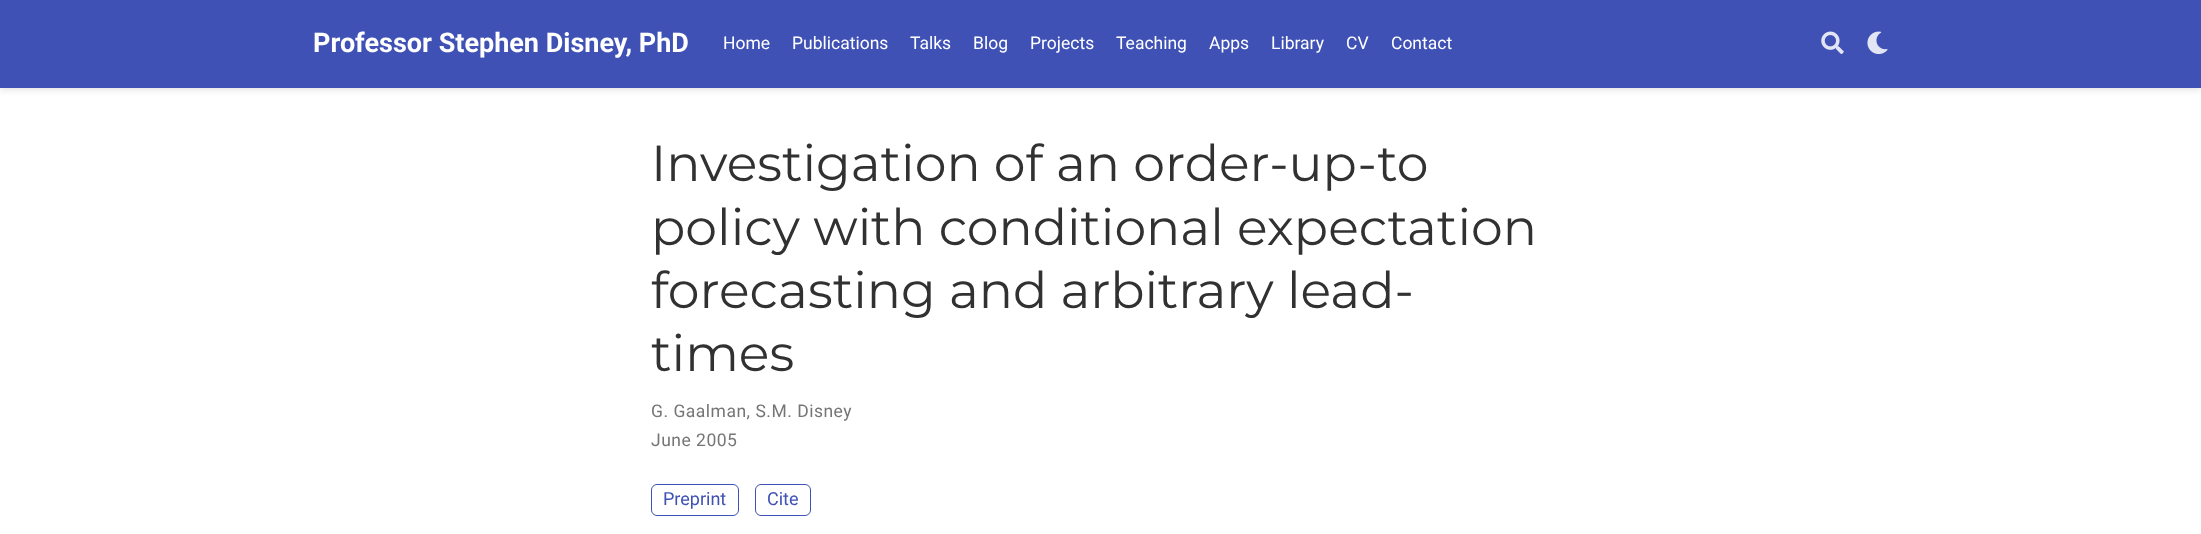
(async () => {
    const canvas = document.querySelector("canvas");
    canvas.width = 2201;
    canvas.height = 534;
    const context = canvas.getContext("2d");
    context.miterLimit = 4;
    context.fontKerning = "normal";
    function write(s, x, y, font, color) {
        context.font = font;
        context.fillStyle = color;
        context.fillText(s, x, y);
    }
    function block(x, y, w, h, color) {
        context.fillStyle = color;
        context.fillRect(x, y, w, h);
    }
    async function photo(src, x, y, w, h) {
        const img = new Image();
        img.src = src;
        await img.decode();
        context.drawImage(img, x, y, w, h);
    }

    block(0, 0, 2201, 534, "rgb(255, 255, 255)");
    context.fillStyle = "rgba(0, 0, 0, 0.11)";
    context.filter = "blur(3px)";
    context.beginPath();
    context.rect(0, 3, 2201, 87);
    context.fill();
    context.filter = "none";
    block(0, 0, 2201, 88, "rgb(63, 81, 181)");
    write("Professor Stephen Disney, PhD", 313, 52, "bold 27px Roboto", "rgb(255, 255, 255)");
    write("Home", 723, 49, "17.5px Roboto", "rgb(255, 255, 255)");
    write("Publications", 792, 49, "17.5px Roboto", "rgb(255, 255, 255)");
    write("Talks", 910, 49, "17.5px Roboto", "rgb(255, 255, 255)");
    write("Blog", 973, 49, "17.5px Roboto", "rgb(255, 255, 255)");
    write("Projects", 1030, 49, "17.5px Roboto", "rgb(255, 255, 255)");
    write("Teaching", 1116, 49, "17.5px Roboto", "rgb(255, 255, 255)");
    write("Apps", 1209, 49, "17.5px Roboto", "rgb(255, 255, 255)");
    write("Library", 1271, 49, "17.5px Roboto", "rgb(255, 255, 255)");
    write("CV", 1346, 49, "17.5px Roboto", "rgb(255, 255, 255)");
    write("Contact", 1391, 49, "17.5px Roboto", "rgb(255, 255, 255)");
    await photo("media/1.png", 1821, 31, 23, 23);
    await photo("media/2.png", 1867, 31, 21, 24);
    write("Investigation of an order-up-to", 651, 181, "50.6px Montserrat", "rgb(49, 49, 49)");
    write("policy with conditional expectation", 651, 245, "50.6px Montserrat", "rgb(49, 49, 49)");
    write("forecasting and arbitrary lead-", 651, 308, "50.6px Montserrat", "rgb(49, 49, 49)");
    write("times", 651, 371, "50.6px Montserrat", "rgb(49, 49, 49)");
    context.letterSpacing = "0.5px";
    write("G. Gaalman, S.M. Disney", 651, 417, "17.5px Roboto", "rgb(117, 117, 117)");
    write("June 2005", 651, 446, "17.5px Roboto", "rgb(117, 117, 117)");
    context.beginPath();
    context.roundRect(651.5, 484.5, 87, 31, 5.5);
    context.strokeStyle = "rgb(63, 81, 181)";
    context.stroke();
    context.letterSpacing = "0px";
    write("Preprint", 663, 505, "18px Roboto", "rgb(63, 81, 181)");
    context.beginPath();
    context.roundRect(755.5, 484.5, 55, 31, 5.5);
    context.stroke();
    write("Cite", 767, 505, "18px Roboto", "rgb(63, 81, 181)");
})();
